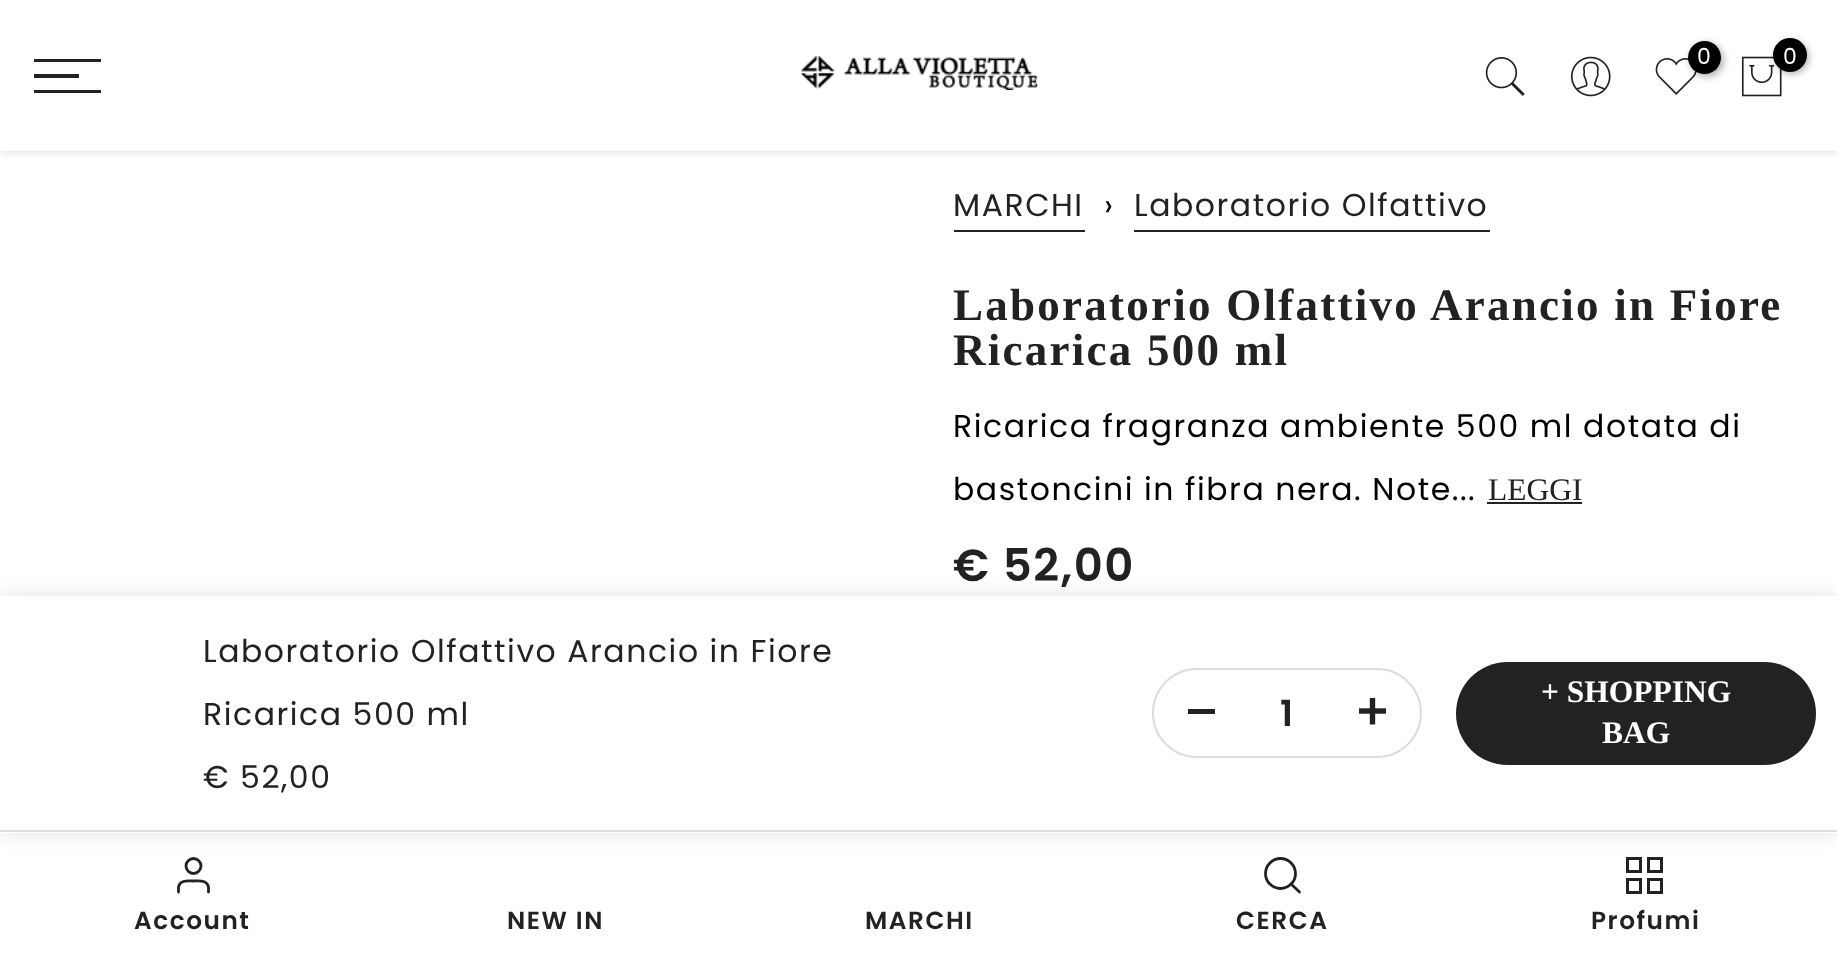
(async () => {
    const canvas = document.querySelector("canvas");
    canvas.width = 1837;
    canvas.height = 955;
    const context = canvas.getContext("2d");
    context.miterLimit = 4;
    context.fontKerning = "normal";
    function write(s, x, y, font, color) {
        context.font = font;
        context.fillStyle = color;
        context.fillText(s, x, y);
    }
    function block(x, y, w, h, color) {
        context.fillStyle = color;
        context.fillRect(x, y, w, h);
    }
    function card(x, y, w, h, r, color) {
        context.fillStyle = color;
        context.beginPath();
        context.roundRect(x, y, w, h, r);
        context.fill();
    }
    async function photo(src, x, y, w, h) {
        const img = new Image();
        img.src = src;
        await img.decode();
        context.drawImage(img, x, y, w, h);
    }

    block(0, 0, 1837, 955, "rgb(255, 255, 255)");
    context.fillStyle = "rgba(0, 0, 0, 0.1)";
    context.filter = "blur(3.5px)";
    context.beginPath();
    context.rect(0, 2, 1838, 151);
    context.fill();
    context.filter = "none";
    block(0, 0, 1837, 151, "rgb(255, 255, 255)");
    block(34, 59, 67, 3, "rgb(34, 34, 34)");
    block(34, 74, 45, 4, "rgb(34, 34, 34)");
    block(34, 90, 67, 3, "rgb(34, 34, 34)");
    await photo("media/1.png", 801, 56, 237, 34);
    await photo("media/2.png", 1485, 57, 40, 39);
    await photo("media/3.png", 1570, 56, 41, 41);
    await photo("media/4.png", 1655, 58, 42, 37);
    context.fillStyle = "rgba(0, 0, 0, 0.3)";
    context.filter = "blur(3.5px)";
    context.beginPath();
    context.roundRect(1690, 43, 34, 34, 17);
    context.fill();
    context.filter = "none";
    context.fillStyle = "rgb(0, 0, 0)";
    context.beginPath();
    context.arc(1704.5, 57.5, 16.5, 0, Math.PI * 2);
    context.fill();
    write("0", 1697, 64, "22px Poppins", "rgb(255, 255, 255)");
    await photo("media/5.png", 1741, 56, 41, 41);
    context.fillStyle = "rgba(0, 0, 0, 0.3)";
    context.filter = "blur(3.5px)";
    context.beginPath();
    context.roundRect(1775, 41, 34, 33, 16.5);
    context.fill();
    context.filter = "none";
    context.fillStyle = "rgb(0, 0, 0)";
    context.beginPath();
    context.arc(1790, 55, 17, 0, Math.PI * 2);
    context.fill();
    write("0", 1783, 64, "22px Poppins", "rgb(255, 255, 255)");
    context.letterSpacing = "1.55px";
    write("MARCHI", 953, 216, "31.5px Poppins", "rgb(34, 34, 34)");
    block(954, 230, 131, 2, "rgb(34, 34, 34)");
    write("›", 1104, 216, "31.5px Poppins", "rgb(0, 0, 0)");
    write("Laboratorio Olfattivo", 1134, 216, "31.5px Poppins", "rgb(34, 34, 34)");
    block(1134, 230, 356, 2, "rgb(34, 34, 34)");
    context.letterSpacing = "2.25px";
    write("Laboratorio Olfattivo Arancio in Fiore", 953, 320, "bold 45px Liberation Serif", "rgb(34, 34, 34)");
    write("Ricarica 500 ml", 953, 365, "bold 45px Liberation Serif", "rgb(34, 34, 34)");
    context.letterSpacing = "1.55px";
    write("Ricarica fragranza ambiente 500 ml dotata di", 953, 437, "31.5px Poppins", "rgb(0, 0, 0)");
    write("bastoncini in fibra nera. Note...", 953, 500, "31.5px Poppins", "rgb(0, 0, 0)");
    context.letterSpacing = "0px";
    write("LEGGI", 1488, 500, "31.5px Liberation Serif", "rgb(34, 34, 34)");
    block(1487, 502, 95, 2, "rgb(34, 34, 34)");
    context.letterSpacing = "1.55px";
    write("€ 52,00", 953, 581, "600 45px Poppins", "rgb(34, 34, 34)");
    context.beginPath();
    context.arc(193.5, 866, 7.5, 0, Math.PI * 2);
    context.strokeStyle = "rgb(34, 34, 34)";
    context.lineWidth = 2.8;
    context.stroke();
    context.beginPath();
    context.arc(1280.5, 873.5, 15, 0, Math.PI * 2);
    context.stroke();
    context.lineWidth = 3;
    context.strokeRect(1627.5, 858.5, 13, 13);
    context.strokeRect(1648.5, 858.5, 13, 13);
    context.fillStyle = "rgba(0, 0, 0, 0.12)";
    context.filter = "blur(10px)";
    context.beginPath();
    context.rect(0, 596, 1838, 237);
    context.fill();
    context.filter = "none";
    block(0, 596, 1837, 237, "rgb(255, 255, 255)");
    block(0, 830, 1837, 2, "rgb(221, 221, 221)");
    write("Laboratorio Olfattivo Arancio in Fiore", 203, 662, "31.5px Poppins", "rgb(34, 34, 34)");
    write("Ricarica 500 ml", 203, 725, "31.5px Poppins", "rgb(34, 34, 34)");
    write("€ 52,00", 203, 788, "31.5px Poppins", "rgb(34, 34, 34)");
    context.beginPath();
    context.roundRect(1153, 669, 268, 88, 44);
    context.strokeStyle = "rgb(221, 221, 221)";
    context.lineWidth = 2;
    context.stroke();
    block(1188, 709, 27, 5, "rgb(34, 34, 34)");
    context.letterSpacing = "0px";
    write("1", 1280, 726, "600 36px Poppins", "rgb(34, 34, 34)");
    await photo("media/6.png", 1359, 698, 27, 27);
    card(1456, 662, 360, 103, 51.5, "rgb(34, 34, 34)");
    write("+ SHOPPING", 1541, 702, "bold 31.5px Liberation Serif", "rgb(255, 255, 255)");
    write("BAG", 1602, 743, "bold 31.5px Liberation Serif", "rgb(255, 255, 255)");
    context.beginPath();
    context.moveTo(208.5, 892);
    context.lineTo(208.5, 887);
    context.bezierCurveTo(207, 879.5, 199, 881, 193.5, 881);
    context.bezierCurveTo(188, 881, 180, 879.5, 178.5, 887);
    context.lineTo(178.5, 892);
    context.strokeStyle = "rgb(34, 34, 34)";
    context.lineWidth = 2.8;
    context.lineCap = "round";
    context.lineJoin = "round";
    context.stroke();
    context.letterSpacing = "1.55px";
    write("Account", 134, 929, "600 24.75px Poppins", "rgb(34, 34, 34)");
    write("NEW IN", 507, 929, "600 24.75px Poppins", "rgb(34, 34, 34)");
    write("MARCHI", 865, 929, "600 24.75px Poppins", "rgb(34, 34, 34)");
    context.beginPath();
    context.moveTo(1299.5, 892);
    context.lineTo(1291, 884);
    context.stroke();
    write("CERCA", 1236, 929, "600 24.75px Poppins", "rgb(34, 34, 34)");
    context.lineWidth = 3;
    context.lineJoin = "miter";
    context.strokeRect(1627.5, 879.5, 13, 13);
    context.strokeRect(1648.5, 879.5, 13, 13);
    write("Profumi", 1591, 929, "600 24.75px Poppins", "rgb(34, 34, 34)");
})();
